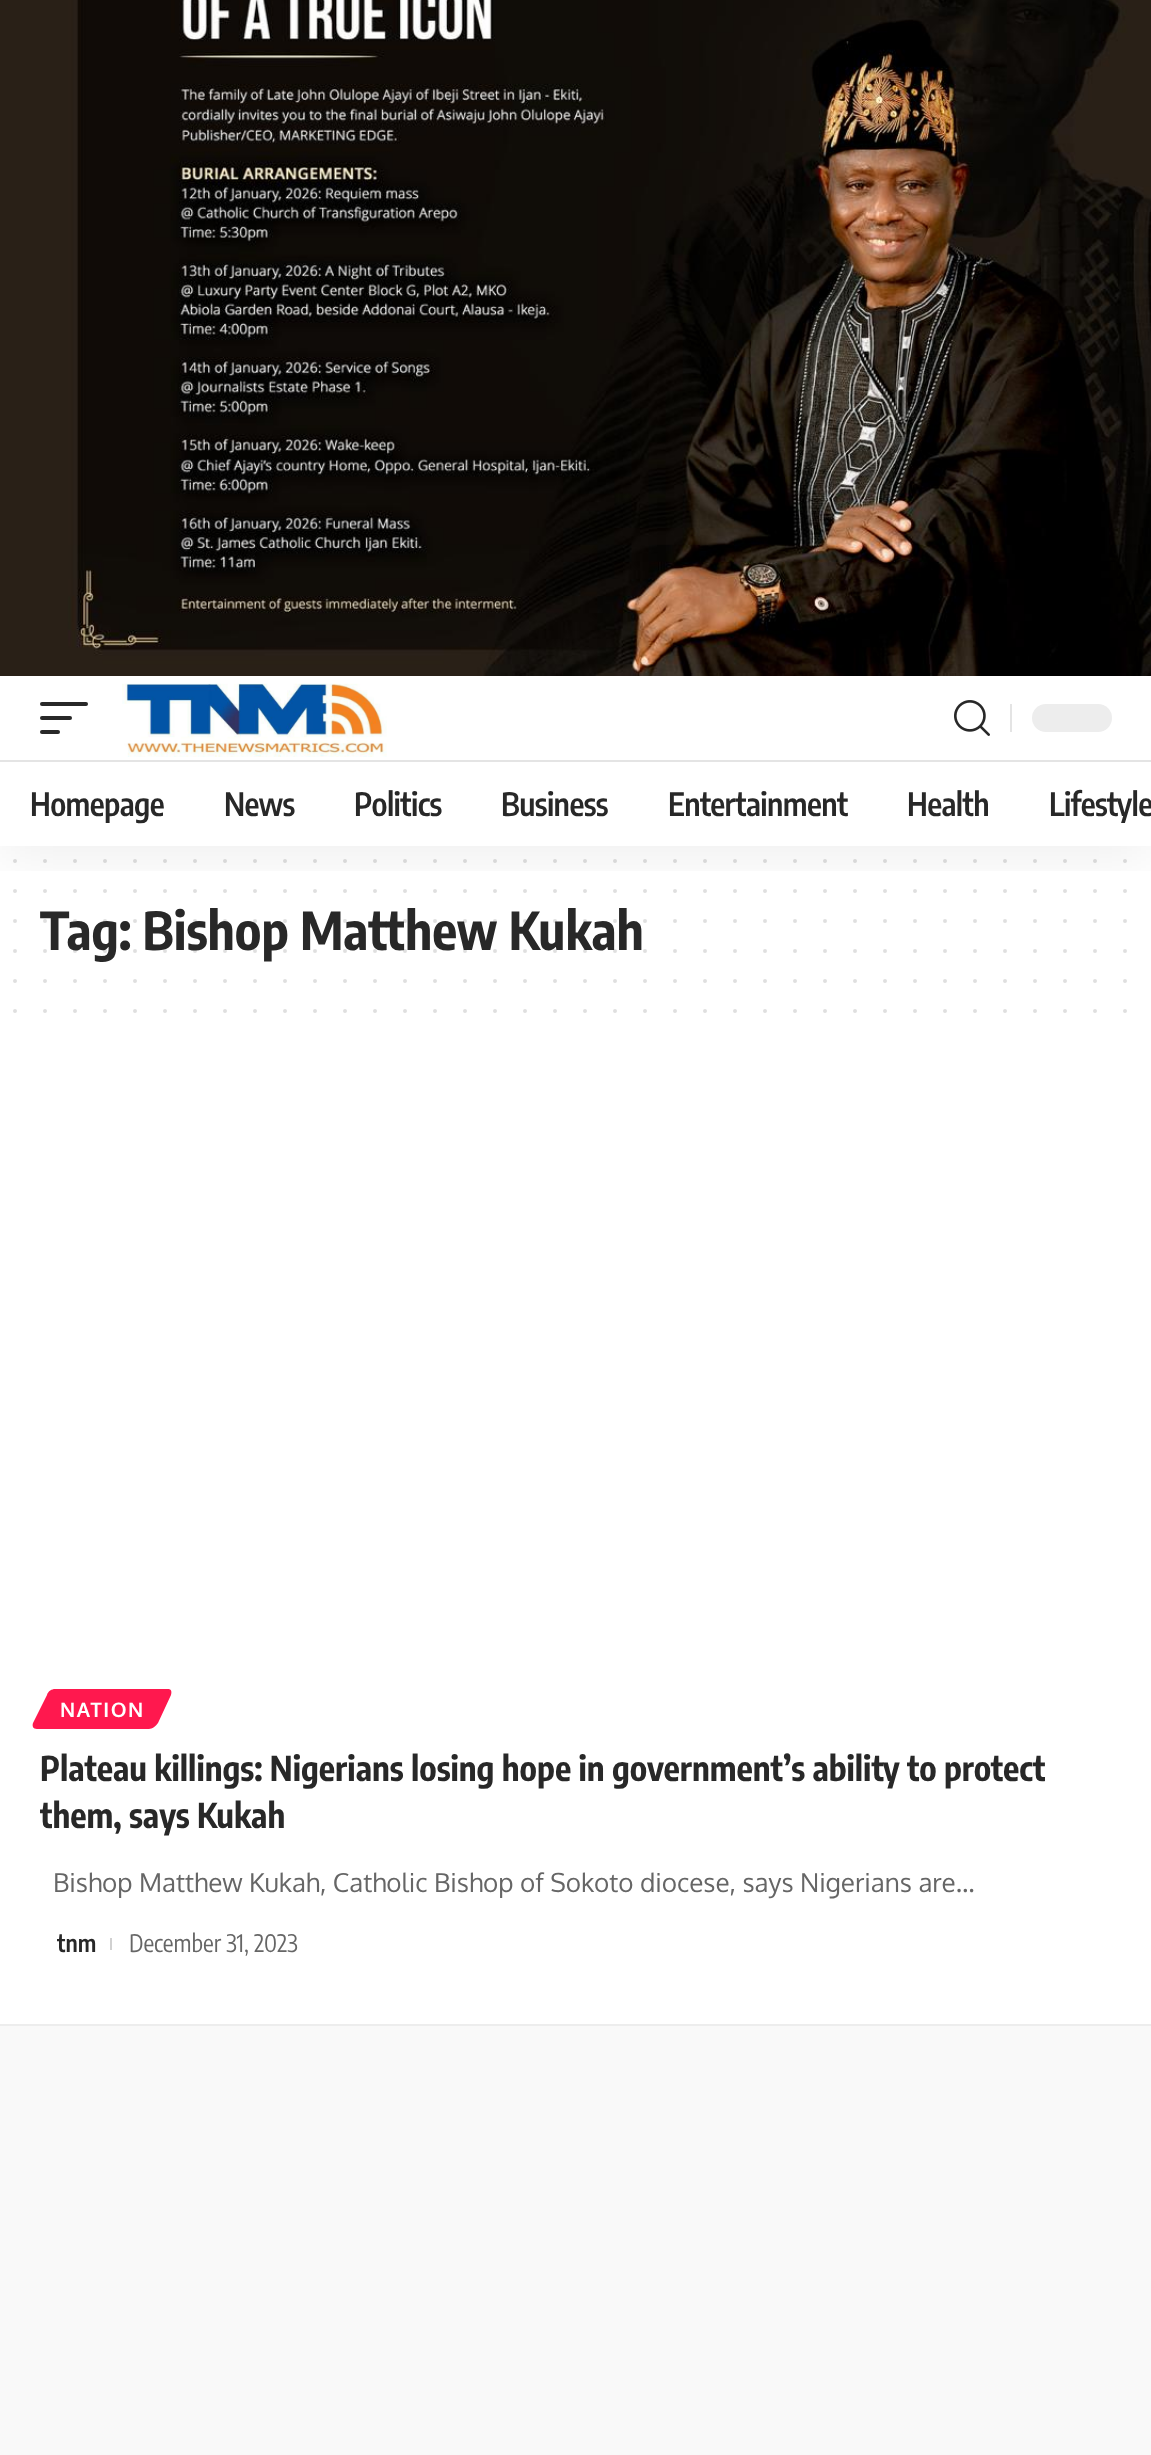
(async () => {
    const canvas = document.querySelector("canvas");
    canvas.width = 1151;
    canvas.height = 2455;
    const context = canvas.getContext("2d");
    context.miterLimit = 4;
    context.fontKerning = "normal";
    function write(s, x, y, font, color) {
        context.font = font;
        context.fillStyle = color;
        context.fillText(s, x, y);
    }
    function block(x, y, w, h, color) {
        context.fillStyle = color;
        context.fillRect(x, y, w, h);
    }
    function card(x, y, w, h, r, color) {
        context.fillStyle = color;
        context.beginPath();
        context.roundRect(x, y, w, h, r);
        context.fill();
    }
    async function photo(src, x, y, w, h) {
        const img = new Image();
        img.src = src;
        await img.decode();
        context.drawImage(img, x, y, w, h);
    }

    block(0, 0, 1151, 2455, "rgb(255, 255, 255)");
    await photo("media/1.png", 0, 0, 1151, 676);
    context.beginPath();
    context.moveTo(15, 861);
    context.lineTo(1125.4, 861);
    context.strokeStyle = "rgb(223, 223, 223)";
    context.lineWidth = 4;
    context.lineCap = "round";
    context.setLineDash([0, 30]);
    context.stroke();
    context.beginPath();
    context.moveTo(15, 891);
    context.lineTo(1125.4, 891);
    context.stroke();
    write("Tag: Bishop Matthew Kukah", 40, 950, "bold 52px Encode Sans Condensed", "rgb(40, 40, 40)");
    context.beginPath();
    context.moveTo(15, 921);
    context.lineTo(1125.4, 921);
    context.strokeStyle = "rgba(40, 40, 40, 0.15)";
    context.stroke();
    context.save();
    context.beginPath();
    context.rect(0, 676, 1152, 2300);
    context.clip();
    context.beginPath();
    context.rect(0, 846, 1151, 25);
    context.clip();
    context.fillStyle = "rgba(0, 0, 0, 0.07)";
    context.filter = "blur(30px)";
    context.beginPath();
    context.rect(0, 684, 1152, 170);
    context.fill();
    context.filter = "none";
    context.restore();
    card(40, 702, 48, 4, 2, "rgb(40, 40, 40)");
    card(40, 716, 32, 4, 2, "rgb(40, 40, 40)");
    card(40, 730, 20, 4, 2, "rgb(40, 40, 40)");
    await photo("media/2.png", 122, 683, 265, 74);
    await photo("media/3.png", 954, 700, 36, 36);
    block(1010, 704, 2, 28, "rgb(228, 228, 228)");
    card(1032, 704, 80, 28, 14, "rgb(237, 237, 237)");
    block(0, 760, 1151, 2, "rgb(228, 228, 228)");
    context.letterSpacing = "-0.6px";
    write("Homepage", 30, 816, "600 32px Encode Sans Condensed", "rgb(40, 40, 40)");
    write("News", 224, 816, "600 32px Encode Sans Condensed", "rgb(40, 40, 40)");
    write("Politics", 354, 816, "600 32px Encode Sans Condensed", "rgb(40, 40, 40)");
    write("Business", 501, 816, "600 32px Encode Sans Condensed", "rgb(40, 40, 40)");
    write("Entertainment", 668, 816, "600 32px Encode Sans Condensed", "rgb(40, 40, 40)");
    write("Health", 907, 816, "600 32px Encode Sans Condensed", "rgb(40, 40, 40)");
    write("Lifestyle", 1049, 816, "600 32px Encode Sans Condensed", "rgb(40, 40, 40)");
    context.beginPath();
    context.moveTo(15, 951);
    context.lineTo(1125.4, 951);
    context.stroke();
    context.beginPath();
    context.moveTo(15, 981);
    context.lineTo(1125.4, 981);
    context.strokeStyle = "rgb(223, 223, 223)";
    context.stroke();
    context.beginPath();
    context.moveTo(15, 1011);
    context.lineTo(1125.4, 1011);
    context.stroke();
    context.fillStyle = "rgb(255, 24, 78)";
    context.beginPath();
    context.moveTo(55, 1689);
    context.lineTo(168, 1689);
    context.bezierCurveTo(171, 1689, 172, 1691, 171, 1695);
    context.lineTo(158, 1723);
    context.bezierCurveTo(156, 1726, 152, 1729, 149, 1729);
    context.lineTo(37, 1729);
    context.bezierCurveTo(33, 1729, 32, 1726, 33, 1723);
    context.lineTo(47, 1695);
    context.bezierCurveTo(48, 1691, 52, 1689, 55, 1689);
    context.closePath();
    context.fill();
    context.letterSpacing = "1.5px";
    write("NATION", 60, 1717, "bold 20px Oxygen", "rgb(255, 255, 255)");
    context.letterSpacing = "0px";
    write("Plateau killings: Nigerians losing hope in government’s ability to protect", 40, 1781, "bold 34px Encode Sans Condensed", "rgb(40, 40, 40)");
    write("them, says Kukah", 40, 1828, "bold 34px Encode Sans Condensed", "rgb(40, 40, 40)");
    write("Bishop Matthew Kukah, Catholic Bishop of Sokoto diocese, says Nigerians are…", 53, 1892, "26px Oxygen", "rgb(102, 102, 102)");
    write("tnm", 57, 1952, "600 24px Encode Sans Condensed", "rgb(40, 40, 40)");
    block(110, 1938, 2, 12, "rgb(209, 209, 209)");
    write("December 31, 2023", 129, 1952, "24px Encode Sans Condensed", "rgb(102, 102, 102)");
    block(0, 2024, 1151, 2, "rgb(237, 237, 237)");
    block(0, 2026, 1151, 429, "rgb(249, 249, 249)");
})();
